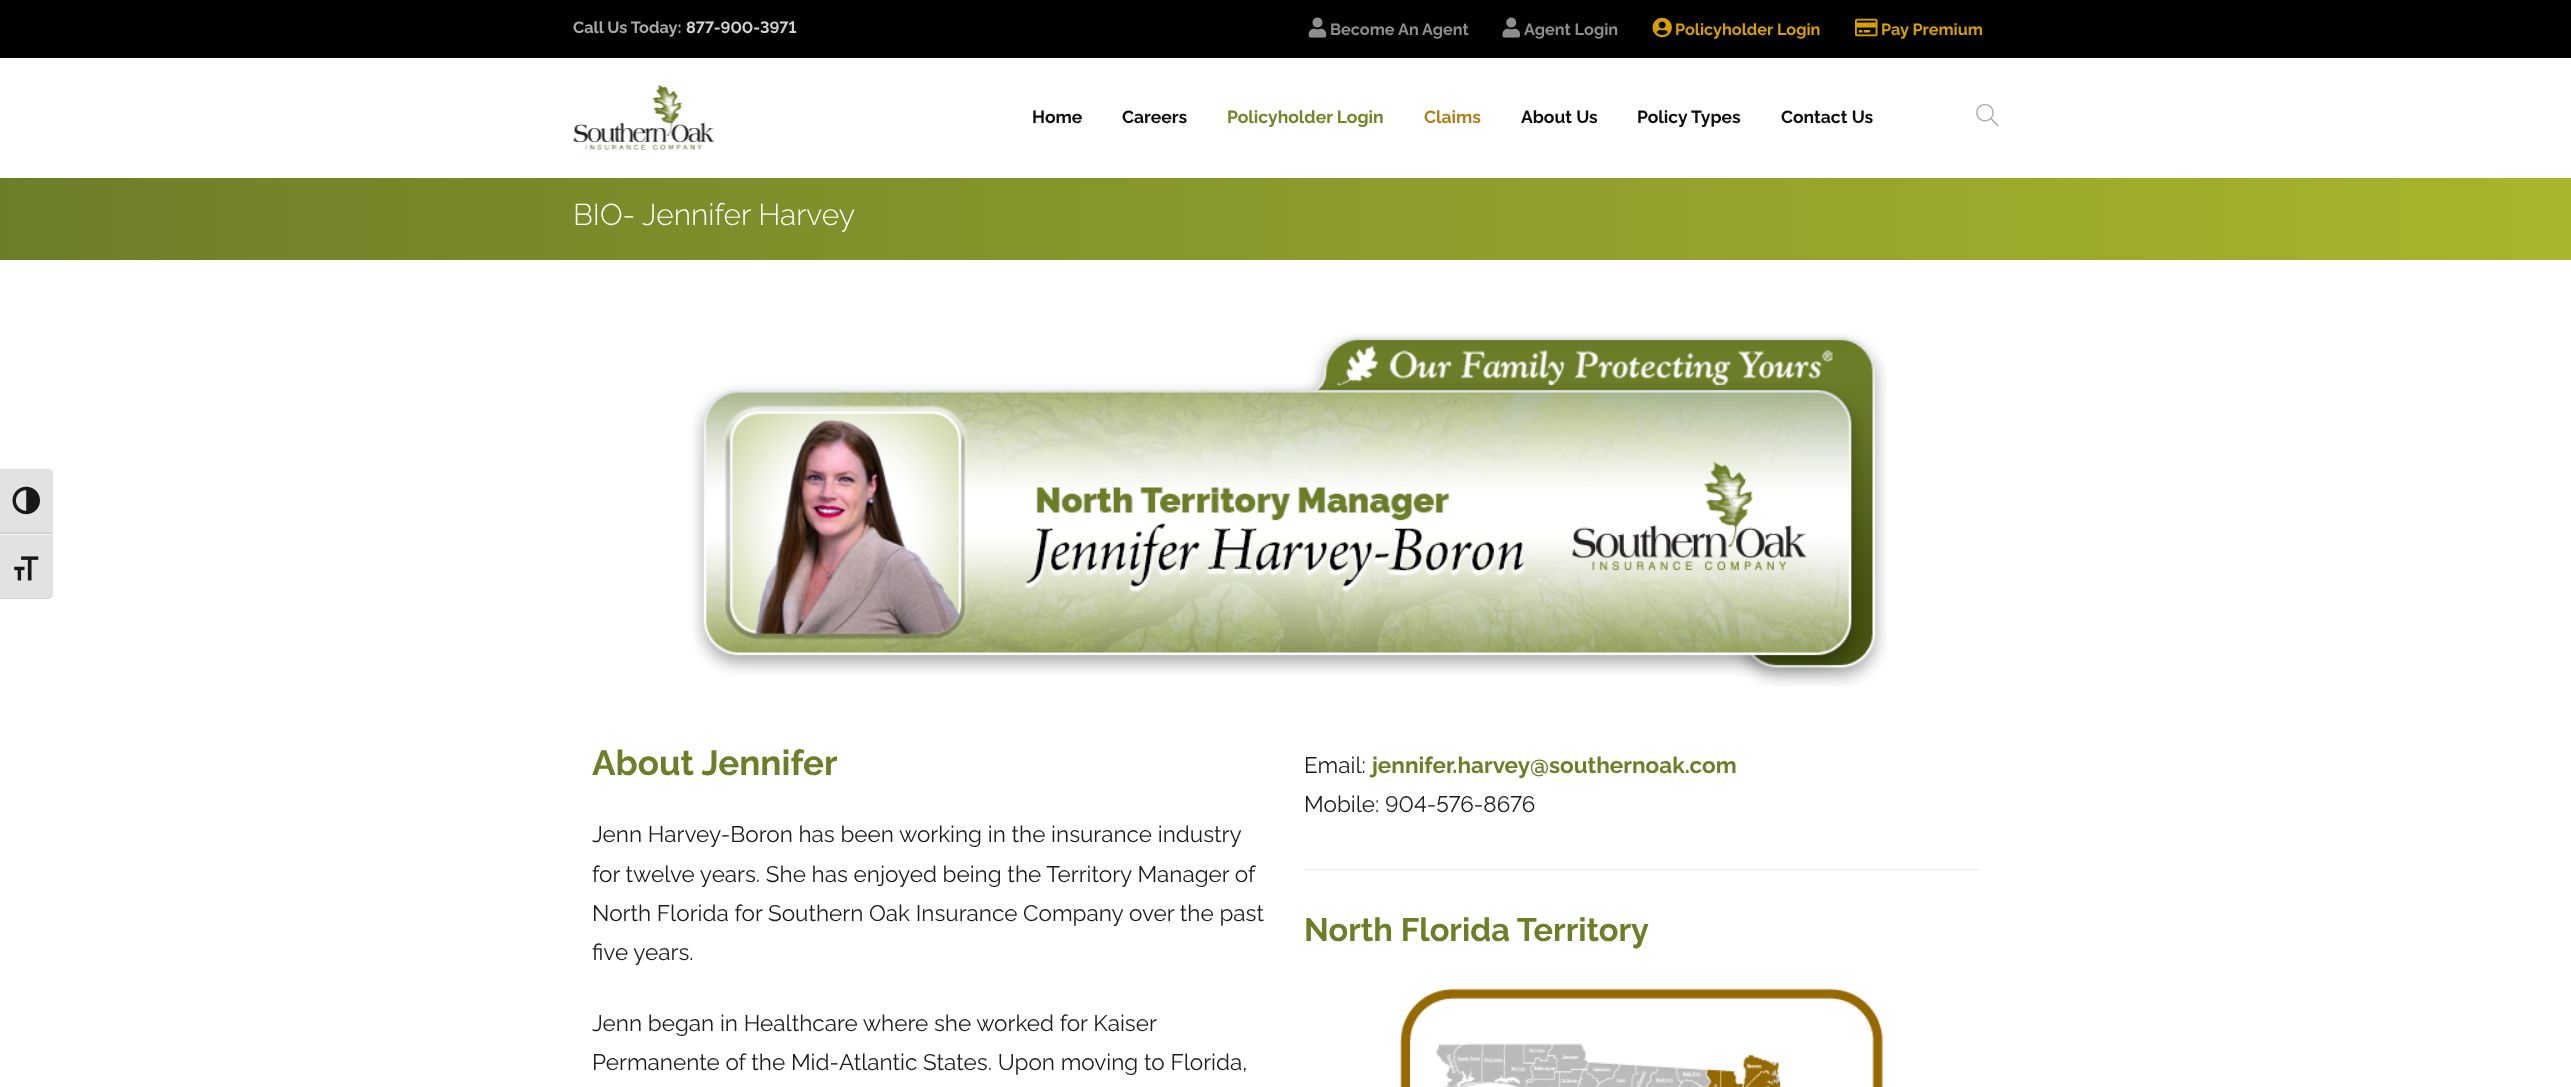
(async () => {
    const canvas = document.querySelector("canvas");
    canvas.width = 2571;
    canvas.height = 1087;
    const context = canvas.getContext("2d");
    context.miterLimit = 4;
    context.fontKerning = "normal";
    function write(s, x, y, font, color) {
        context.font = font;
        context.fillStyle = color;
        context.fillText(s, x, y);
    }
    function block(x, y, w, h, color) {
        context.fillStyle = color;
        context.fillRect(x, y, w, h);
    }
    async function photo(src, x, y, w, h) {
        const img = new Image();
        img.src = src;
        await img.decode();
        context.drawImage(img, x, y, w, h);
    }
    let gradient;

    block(0, 0, 2571, 1087, "rgb(255, 255, 255)");
    block(0, 0, 2571, 58, "rgb(0, 0, 0)");
    write("Call Us Today:", 573, 33, "bold 16.25px Raleway", "rgb(169, 169, 169)");
    write("877-900-3971", 686, 33, "bold 16.25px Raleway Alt", "rgb(210, 210, 210)");
    await photo("media/1.png", 1308, 17, 19, 21);
    write("Become An Agent", 1330, 35, "bold 16.25px Raleway", "rgb(142, 142, 142)");
    await photo("media/2.png", 1502, 17, 18, 21);
    write("Agent Login", 1524, 35, "bold 16.25px Raleway", "rgb(142, 142, 142)");
    await photo("media/3.png", 1652, 17, 20, 21);
    write("Policyholder Login", 1675, 35, "bold 16.25px Raleway", "rgb(215, 159, 0)");
    await photo("media/4.png", 1855, 18, 23, 19);
    write("Pay Premium", 1881, 35, "bold 16.25px Raleway", "rgb(215, 159, 0)");
    await photo("media/5.png", 573, 85, 142, 65);
    write("Home", 1032, 123, "bold 17.5px Raleway", "rgb(12, 12, 12)");
    write("Careers", 1122, 123, "bold 17.5px Raleway", "rgb(12, 12, 12)");
    write("Policyholder Login", 1227, 123, "bold 17.5px Raleway", "rgb(116, 132, 41)");
    write("Claims", 1424, 123, "bold 17.5px Raleway", "rgb(174, 127, 26)");
    write("About Us", 1521, 123, "bold 17.5px Raleway", "rgb(12, 12, 12)");
    write("Policy Types", 1637, 123, "bold 17.5px Raleway", "rgb(12, 12, 12)");
    write("Contact Us", 1781, 123, "bold 17.5px Raleway", "rgb(12, 12, 12)");
    await photo("media/6.png", 1976, 104, 23, 23);
    context.fillStyle = "rgb(226, 226, 226)";
    context.beginPath();
    context.roundRect(0, 468, 53, 66, [0, 5, 0, 0]);
    context.fill();
    context.fillStyle = "rgb(245, 245, 245)";
    context.beginPath();
    context.moveTo(0, 469);
    context.lineTo(48, 469);
    context.bezierCurveTo(50, 469, 52, 470, 52, 472);
    context.bezierCurveTo(52, 470, 50, 468, 48, 468);
    context.lineTo(0, 468);
    context.closePath();
    context.fill();
    block(0, 532, 52, 2, "rgb(210, 210, 210)");
    await photo("media/7.png", 12, 486, 28, 29);
    context.fillStyle = "rgb(226, 226, 226)";
    context.beginPath();
    context.roundRect(0, 534, 53, 65, [0, 0, 5, 0]);
    context.fill();
    block(0, 534, 52, 1, "rgb(245, 245, 245)");
    context.fillStyle = "rgb(210, 210, 210)";
    context.beginPath();
    context.moveTo(49, 599);
    context.bezierCurveTo(51, 598, 52, 596, 52, 594);
    context.bezierCurveTo(52, 596, 50, 598, 48, 598);
    context.lineTo(0, 598);
    context.lineTo(0, 599);
    context.closePath();
    context.fill();
    await photo("media/8.png", 14, 556, 25, 25);
    gradient = context.createLinearGradient(0, 196, 2571, 196);
    gradient.addColorStop(0, "rgb(109, 126, 41)");
    gradient.addColorStop(1, "rgb(168, 181, 44)");
    context.fillStyle = gradient;
    context.fillRect(0, 178, 2571, 82);
    write("BIO- Jennifer Harvey", 573, 225, "300 30px Raleway", "rgb(255, 255, 255)");
    await photo("media/9.png", 692, 333, 1195, 354);
    write("About Jennifer", 592, 775, "bold 35px Raleway", "rgb(109, 126, 41)");
    write("Jenn Harvey-Boron has been working in the insurance industry", 592, 842, "22.5px Raleway", "rgb(28, 28, 28)");
    write("for twelve years. She has enjoyed being the Territory Manager of", 592, 882, "22.5px Raleway", "rgb(28, 28, 28)");
    write("North Florida for Southern Oak Insurance Company over the past", 592, 921, "22.5px Raleway", "rgb(28, 28, 28)");
    write("five years.", 592, 960, "22.5px Raleway", "rgb(28, 28, 28)");
    write("Jenn began in Healthcare where she worked for Kaiser", 592, 1031, "22.5px Raleway", "rgb(28, 28, 28)");
    write("Permanente of the Mid-Atlantic States. Upon moving to Florida,", 592, 1070, "22.5px Raleway", "rgb(28, 28, 28)");
    write("Email:", 1304, 773, "22.5px Raleway", "rgb(28, 28, 28)");
    write("jennifer.harvey@southernoak.com", 1372, 773, "bold 22.5px Raleway", "rgb(109, 126, 41)");
    write("Mobile: 904-576-8676", 1304, 812, "22.5px Raleway Alt", "rgb(28, 28, 28)");
    block(1305, 869, 675, 1, "rgb(235, 235, 235)");
    write("North Florida Territory", 1304, 941, "bold 32.5px Raleway", "rgb(109, 126, 41)");
    await photo("media/10.png", 1400, 988, 483, 99);
})();
